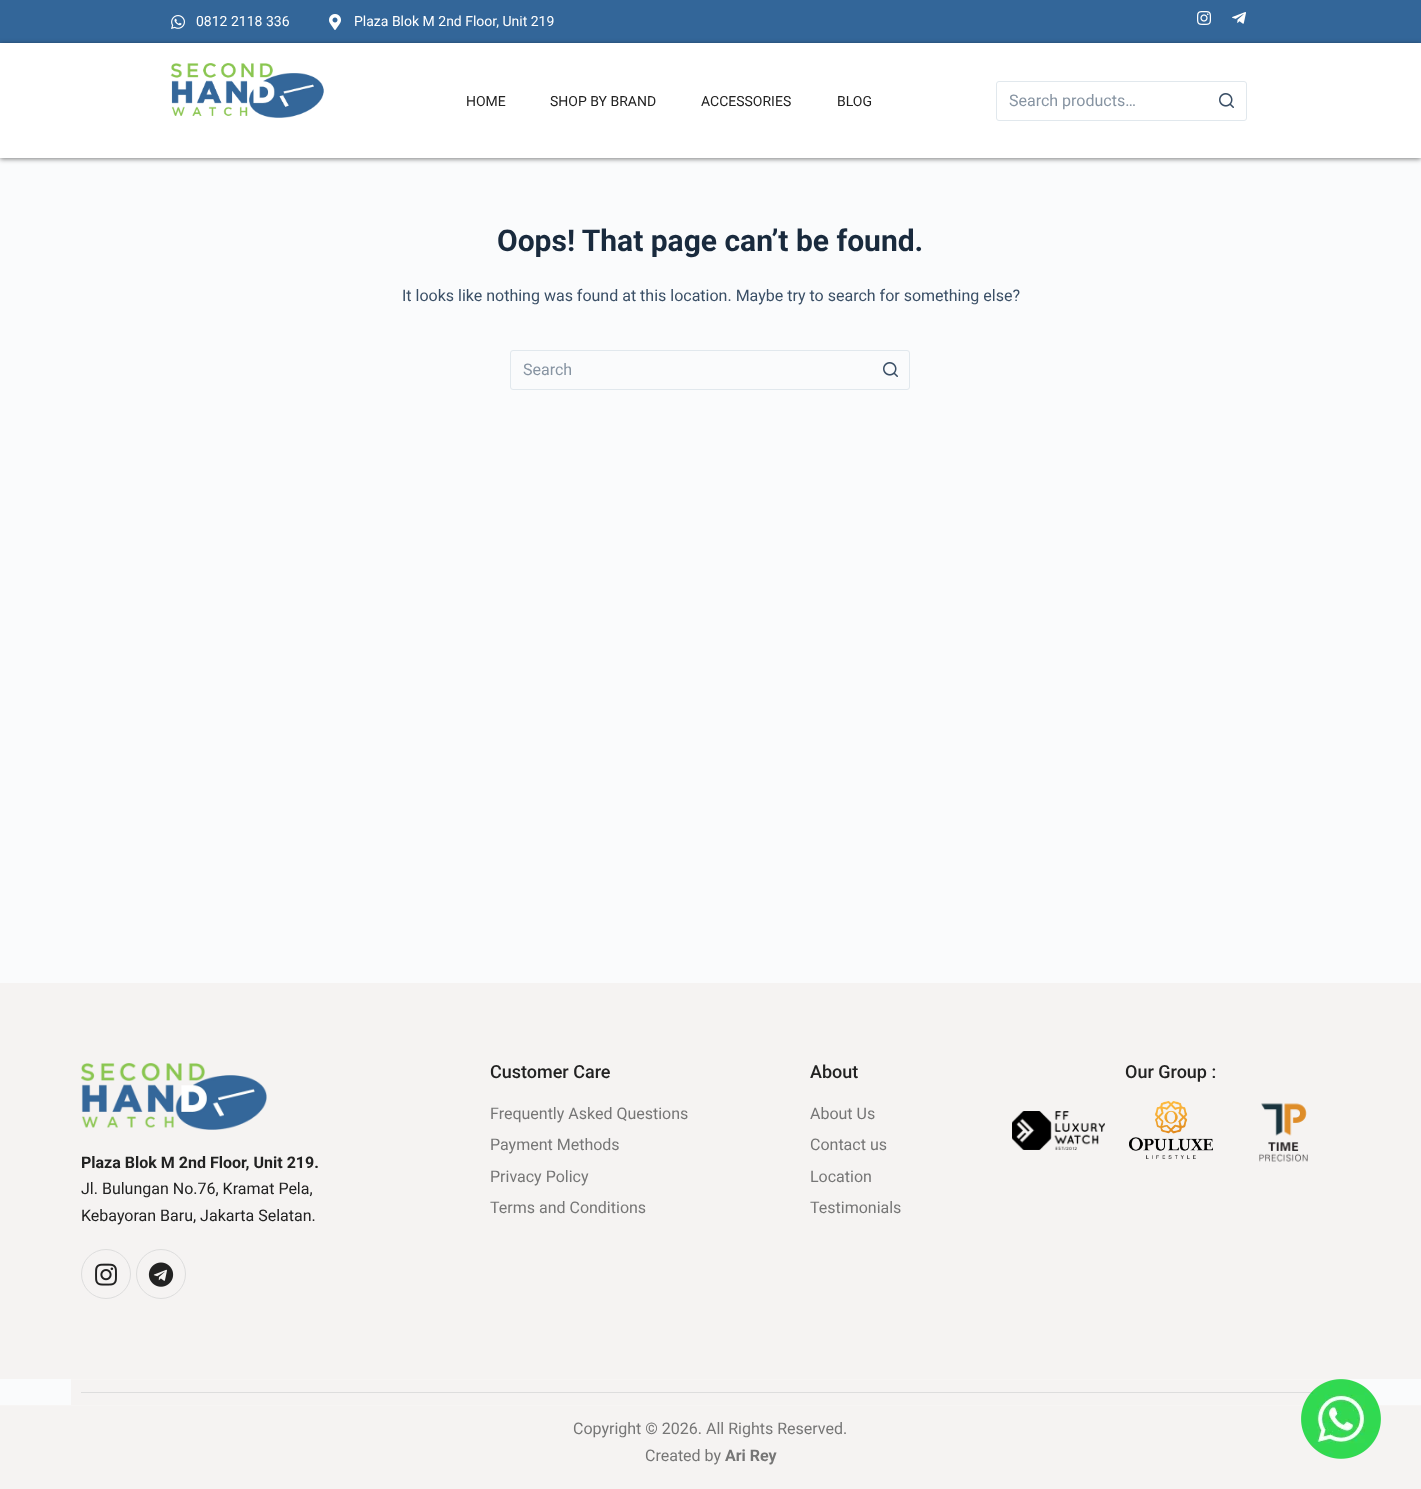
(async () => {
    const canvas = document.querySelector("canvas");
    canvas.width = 1421;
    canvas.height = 1489;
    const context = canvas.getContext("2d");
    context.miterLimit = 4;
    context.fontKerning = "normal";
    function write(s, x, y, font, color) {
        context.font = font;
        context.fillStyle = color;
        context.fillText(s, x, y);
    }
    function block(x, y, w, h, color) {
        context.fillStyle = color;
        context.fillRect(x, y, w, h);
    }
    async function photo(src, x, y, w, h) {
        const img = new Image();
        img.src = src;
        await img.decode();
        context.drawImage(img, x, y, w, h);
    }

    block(0, 0, 1421, 1489, "rgb(250, 251, 252)");
    block(0, 0, 1421, 43, "rgb(51, 102, 153)");
    await photo("media/1.png", 171, 15, 14, 14);
    write("0812 2118 336", 196, 26, "14px Roboto", "rgb(255, 255, 255)");
    await photo("media/2.png", 329, 14, 12, 16);
    write("Plaza Blok M 2nd Floor, Unit 219", 354, 26, "14px Roboto", "rgb(255, 255, 255)");
    await photo("media/3.png", 1197, 11, 14, 14);
    await photo("media/4.png", 1232, 12, 14, 12);
    context.fillStyle = "rgba(0, 0, 0, 0.5)";
    context.filter = "blur(2.5px)";
    context.beginPath();
    context.rect(0, 44, 1421, 115);
    context.fill();
    context.filter = "none";
    block(0, 43, 1421, 115, "rgb(255, 255, 255)");
    await photo("media/5.png", 170, 63, 154, 55);
    write("HOME", 466, 106, "14px Roboto", "rgb(34, 34, 34)");
    write("SHOP BY BRAND", 550, 106, "14px Roboto", "rgb(34, 34, 34)");
    write("ACCESSORIES", 701, 106, "14px Roboto", "rgb(34, 34, 34)");
    write("BLOG", 837, 106, "14px Roboto", "rgb(34, 34, 34)");
    context.beginPath();
    context.roundRect(996.5, 81.5, 250, 39, 2.5);
    context.strokeStyle = "rgb(225, 232, 237)";
    context.stroke();
    write("Search products…", 1009, 106, "16px Roboto", "rgb(135, 148, 162)");
    await photo("media/6.png", 1219, 93, 15, 15);
    write("Oops! That page can’t be found.", 497, 251, "bold 30px Roboto", "rgb(25, 42, 61)");
    write("It looks like nothing was found at this location. Maybe try to search for something else?", 402, 301, "16px Roboto", "rgb(58, 79, 102)");
    context.beginPath();
    context.roundRect(510.5, 350.5, 399, 39, 2.5);
    context.stroke();
    write("Search", 523, 375, "16px Roboto", "rgb(135, 148, 162)");
    await photo("media/7.png", 883, 362, 15, 15);
    block(0, 983, 1421, 396, "rgb(245, 243, 242)");
    write("Customer Care", 490, 1078, "500 18px Roboto", "rgb(34, 34, 34)");
    write("Frequently Asked Questions", 490, 1119, "16px Roboto", "rgb(118, 118, 118)");
    write("Payment Methods", 490, 1150, "16px Roboto", "rgb(118, 118, 118)");
    write("Privacy Policy", 490, 1182, "16px Roboto", "rgb(118, 118, 118)");
    write("Terms and Conditions", 490, 1213, "16px Roboto", "rgb(118, 118, 118)");
    write("About", 810, 1078, "500 18px Roboto", "rgb(34, 34, 34)");
    write("About Us", 810, 1119, "16px Roboto", "rgb(118, 118, 118)");
    write("Contact us", 810, 1150, "16px Roboto", "rgb(118, 118, 118)");
    write("Location", 810, 1182, "16px Roboto", "rgb(118, 118, 118)");
    write("Testimonials", 810, 1213, "16px Roboto", "rgb(118, 118, 118)");
    block(71, 1380, 1279, 25, "rgb(245, 243, 242)");
    block(71, 1379, 1279, 1, "rgb(247, 245, 244)");
    block(81, 1392, 1231, 1, "rgb(221, 221, 221)");
    block(0, 1406, 1421, 83, "rgb(245, 243, 242)");
    block(0, 1405, 1421, 1, "rgb(247, 245, 244)");
    await photo("media/8.png", 1301, 1379, 80, 80);
    write("Our Group :", 1125, 1078, "500 18px Roboto", "rgb(34, 34, 34)");
    await photo("media/9.png", 1012, 1111, 93, 39);
    await photo("media/10.png", 1129, 1101, 84, 58);
    await photo("media/11.png", 1259, 1103, 49, 59);
    await photo("media/12.png", 81, 1063, 186, 67);
    write("Plaza Blok M 2nd Floor, Unit 219.", 81, 1168, "bold 16px Roboto", "rgb(34, 34, 34)");
    write("Jl. Bulungan No.76, Kramat Pela,", 81, 1194, "16px Roboto", "rgb(34, 34, 34)");
    write("Kebayoran Baru, Jakarta Selatan.", 81, 1221, "16px Roboto", "rgb(34, 34, 34)");
    context.beginPath();
    context.arc(106, 1274, 24.5, 0, Math.PI * 2);
    context.strokeStyle = "rgb(221, 221, 221)";
    context.stroke();
    await photo("media/13.png", 95, 1263, 22, 23);
    context.beginPath();
    context.arc(161, 1274, 24.5, 0, Math.PI * 2);
    context.stroke();
    await photo("media/14.png", 148, 1262, 26, 25);
    write("Copyright © 2026. All Rights Reserved.", 573, 1434, "16px Roboto", "rgb(118, 118, 118)");
    write("Created by", 645, 1461, "16px Roboto", "rgb(118, 118, 118)");
    write("Ari Rey", 725, 1461, "bold 16px Roboto", "rgb(118, 118, 118)");
})();
